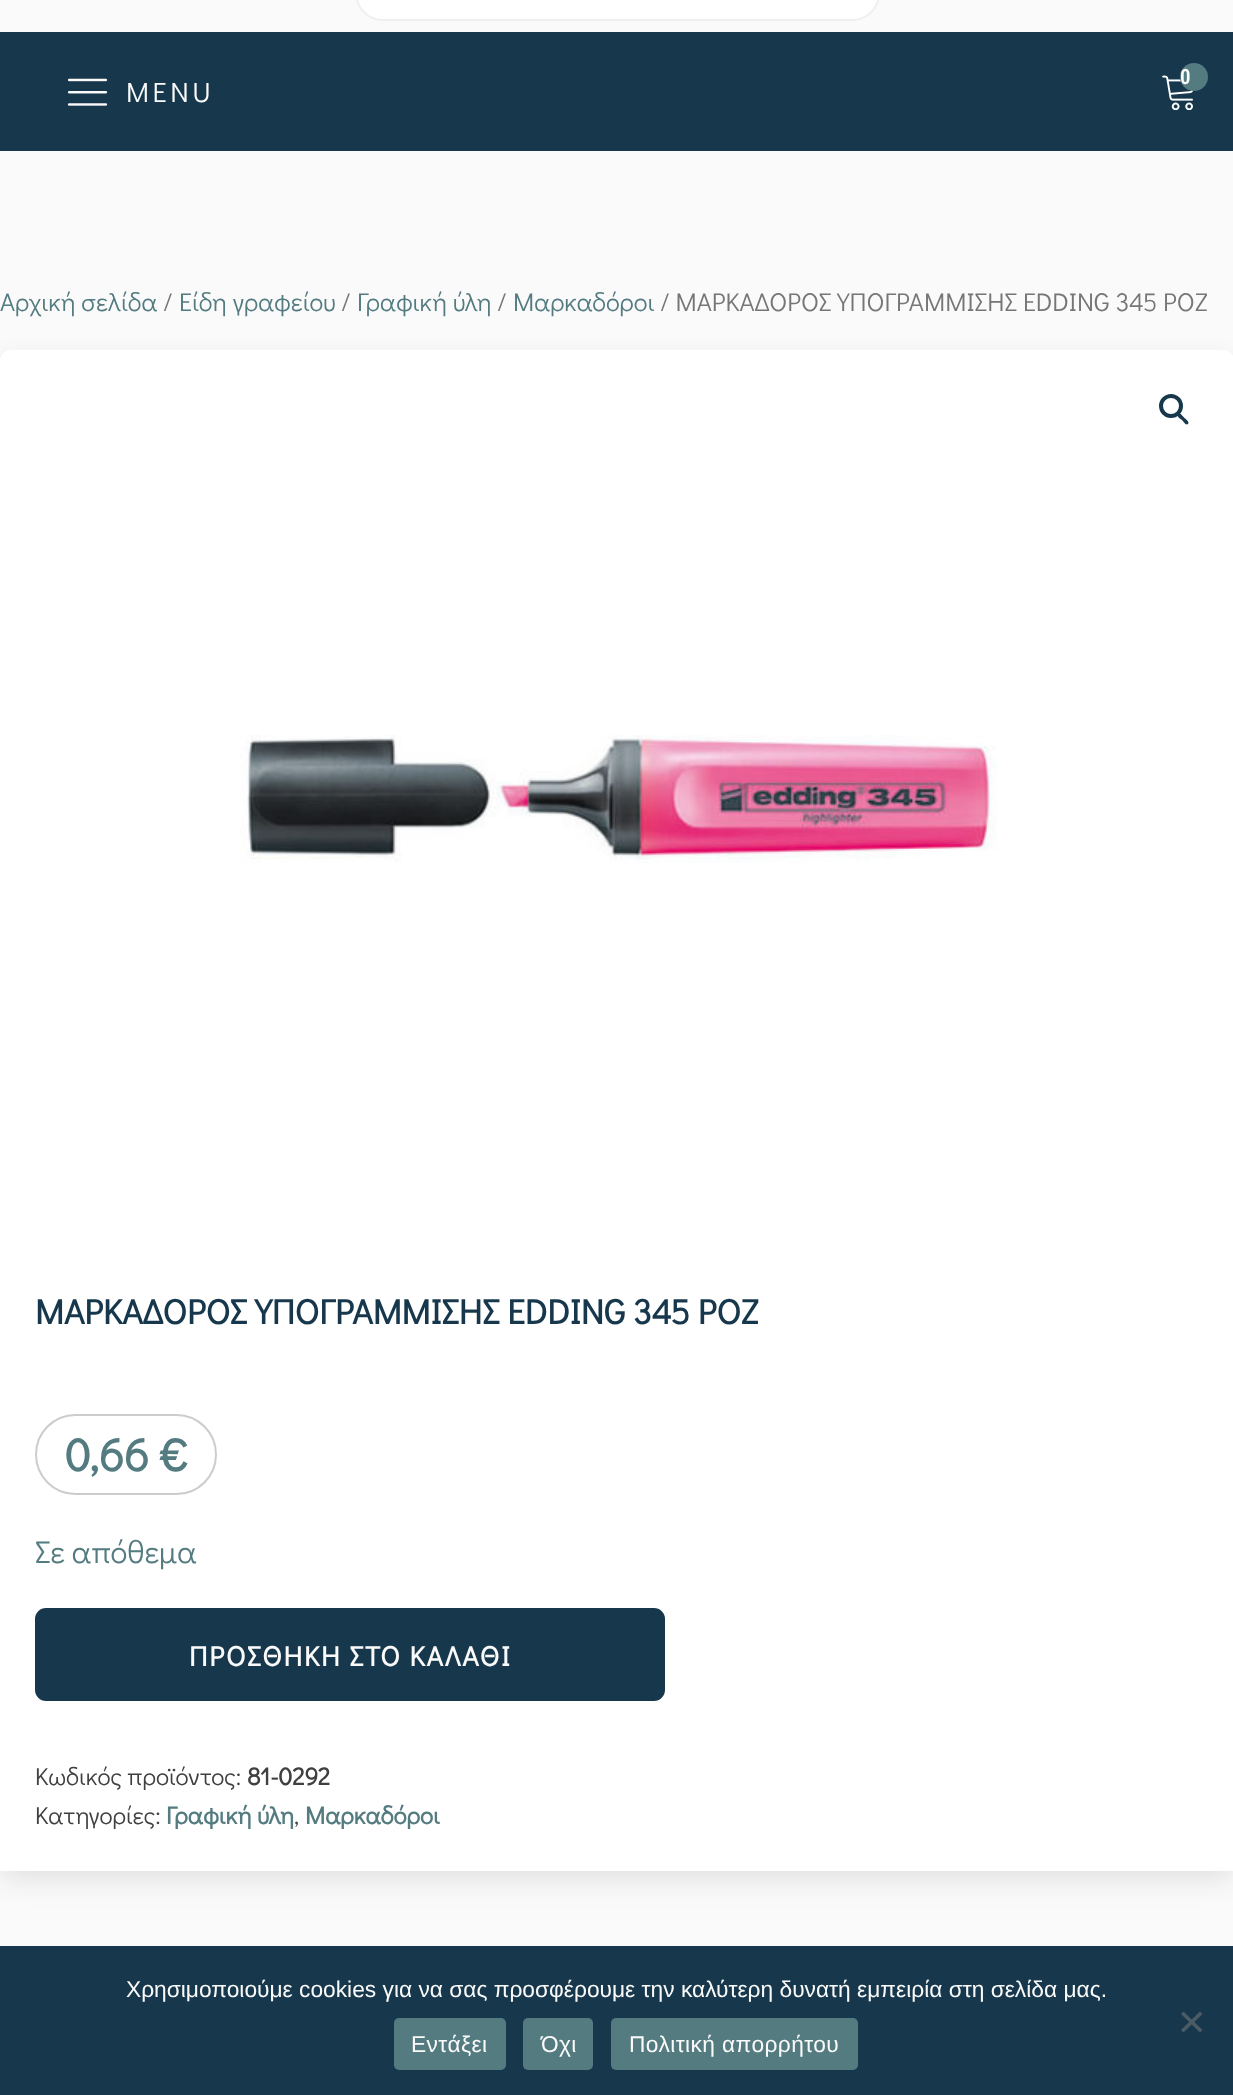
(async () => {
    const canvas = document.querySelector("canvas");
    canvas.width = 1233;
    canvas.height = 2095;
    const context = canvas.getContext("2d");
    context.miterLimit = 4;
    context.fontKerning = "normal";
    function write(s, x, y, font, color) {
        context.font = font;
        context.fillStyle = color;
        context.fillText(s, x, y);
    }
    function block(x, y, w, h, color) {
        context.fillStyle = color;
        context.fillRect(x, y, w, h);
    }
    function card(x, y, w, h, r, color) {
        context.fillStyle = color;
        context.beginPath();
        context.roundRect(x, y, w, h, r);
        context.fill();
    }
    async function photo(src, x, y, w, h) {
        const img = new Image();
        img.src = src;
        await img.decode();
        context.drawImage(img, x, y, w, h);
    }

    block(0, 0, 1233, 2095, "rgb(250, 250, 250)");
    context.fillStyle = "rgb(255, 255, 255)";
    context.beginPath();
    context.roundRect(356, -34, 523, 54, 32);
    context.fill();
    context.strokeStyle = "rgb(239, 239, 239)";
    context.lineWidth = 2;
    context.stroke();
    block(0, 32, 1233, 119, "rgb(23, 56, 76)");
    await photo("media/1.png", 1162, 75, 32, 35);
    context.fillStyle = "rgb(83, 123, 128)";
    context.beginPath();
    context.arc(1194, 77, 14, 0, Math.PI * 2);
    context.fill();
    write("0", 1180, 84, "600 21px Roboto Condensed", "rgb(250, 250, 250)");
    await photo("media/2.png", 67, 78, 41, 28);
    context.letterSpacing = "3.5px";
    write("MENU", 126, 102, "28px Didact Gothic", "rgb(250, 250, 250)");
    context.letterSpacing = "0px";
    write("Αρχική σελίδα", 0, 311, "25.75px Didact Gothic", "rgb(83, 123, 128)");
    write("/", 163, 311, "25.75px Didact Gothic", "rgb(118, 118, 118)");
    write("Είδη γραφείου", 179, 311, "25.75px Didact Gothic", "rgb(83, 123, 128)");
    write("/", 341, 311, "25.75px Didact Gothic", "rgb(118, 118, 118)");
    write("Γραφική ύλη", 357, 311, "25.75px Didact Gothic", "rgb(83, 123, 128)");
    write("/", 497, 311, "25.75px Didact Gothic", "rgb(118, 118, 118)");
    write("Μαρκαδόροι", 513, 311, "25.75px Didact Gothic", "rgb(83, 123, 128)");
    write("/ ΜΑΡΚΑΔΟΡΟΣ ΥΠΟΓΡΑΜΜΙΣΗΣ EDDING 345 ΡΟΖ", 660, 311, "25.75px Didact Gothic", "rgb(118, 118, 118)");
    context.fillStyle = "rgba(34, 34, 34, 0.1)";
    context.filter = "blur(13px)";
    context.beginPath();
    context.roundRect(0, 361, 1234, 1520, 11);
    context.fill();
    context.filter = "none";
    card(0, 350, 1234, 1521, 11, "rgb(255, 255, 255)");
    context.beginPath();
    context.arc(1171, 406, 10, 0, Math.PI * 2);
    context.strokeStyle = "rgb(23, 56, 76)";
    context.lineWidth = 4;
    context.stroke();
    context.fillStyle = "rgb(23, 56, 76)";
    context.beginPath();
    context.moveTo(1178, 414);
    context.bezierCurveTo(1180, 412, 1183, 416.5, 1184, 417.5);
    context.bezierCurveTo(1185.5, 419, 1190, 422, 1188, 424);
    context.bezierCurveTo(1186, 426, 1183, 421, 1182, 420);
    context.bezierCurveTo(1180.5, 419, 1176, 416, 1178, 414);
    context.closePath();
    context.fill();
    await photo("media/3.png", 240, 735, 757, 128);
    block(0, 1862, 1233, 9, "rgb(255, 255, 255)");
    write("ΜΑΡΚΑΔΟΡΟΣ ΥΠΟΓΡΑΜΜΙΣΗΣ EDDING 345 ΡΟΖ", 35, 1324, "bold 35px Didact Gothic", "rgb(23, 56, 76)");
    context.beginPath();
    context.roundRect(36, 1415, 180, 79, 39.5);
    context.strokeStyle = "rgb(204, 204, 204)";
    context.lineWidth = 2;
    context.stroke();
    write("0,66 €", 65, 1471, "bold 45.5px Didact Gothic", "rgb(83, 123, 128)");
    write("Σε απόθεμα", 35, 1563, "31.5px Didact Gothic", "rgb(83, 123, 128)");
    context.fillStyle = "rgb(23, 56, 76)";
    context.beginPath();
    context.roundRect(36, 1609, 628, 91, 10);
    context.fill();
    context.strokeStyle = "rgb(23, 56, 76)";
    context.stroke();
    context.letterSpacing = "1.75px";
    write("ΠΡΟΣΘΗΚΗ ΣΤΟ ΚΑΛΑΘΙ", 189, 1666, "bold 28px Didact Gothic", "rgb(250, 250, 250)");
    context.letterSpacing = "0px";
    write("Κωδικός προϊόντος:", 35, 1785, "24.5px Didact Gothic", "rgb(64, 64, 64)");
    write("81-0292", 247, 1785, "bold 24.5px Didact Gothic", "rgb(64, 64, 64)");
    write("Κατηγορίες:", 35, 1824, "24.5px Didact Gothic", "rgb(64, 64, 64)");
    write("Γραφική ύλη", 166, 1824, "bold 24.5px Didact Gothic", "rgb(83, 123, 128)");
    write(",", 294, 1824, "24.5px Didact Gothic", "rgb(64, 64, 64)");
    write("Μαρκαδόροι", 305, 1824, "bold 24.5px Didact Gothic", "rgb(83, 123, 128)");
    block(0, 1946, 1233, 149, "rgb(23, 56, 76)");
    write("Χρησιμοποιούμε cookies για να σας προσφέρουμε την καλύτερη δυνατή εμπειρία στη σελίδα μας.", 126, 1997, "22.75px Liberation Sans", "rgb(250, 250, 250)");
    context.fillStyle = "rgb(76, 92, 102)";
    context.beginPath();
    context.moveTo(1200, 2011.5);
    context.lineTo(1202.5, 2014);
    context.lineTo(1183.5, 2032.5);
    context.lineTo(1181, 2030);
    context.closePath();
    context.fill();
    context.beginPath();
    context.moveTo(1181, 2014);
    context.lineTo(1183.5, 2011.5);
    context.lineTo(1202.5, 2030);
    context.lineTo(1200, 2032.5);
    context.closePath();
    context.fill();
    card(394, 2018, 112, 52, 5, "rgb(83, 123, 128)");
    context.letterSpacing = "0.4px";
    write("Εντάξει", 411, 2052, "22.75px Liberation Sans", "rgb(250, 250, 250)");
    card(523, 2018, 70, 52, 5, "rgb(83, 123, 128)");
    write("Όχι", 541, 2052, "22.75px Liberation Sans", "rgb(250, 250, 250)");
    card(611, 2018, 247, 52, 5, "rgb(83, 123, 128)");
    write("Πολιτική απορρήτου", 629, 2052, "22.75px Liberation Sans", "rgb(250, 250, 250)");
})();
